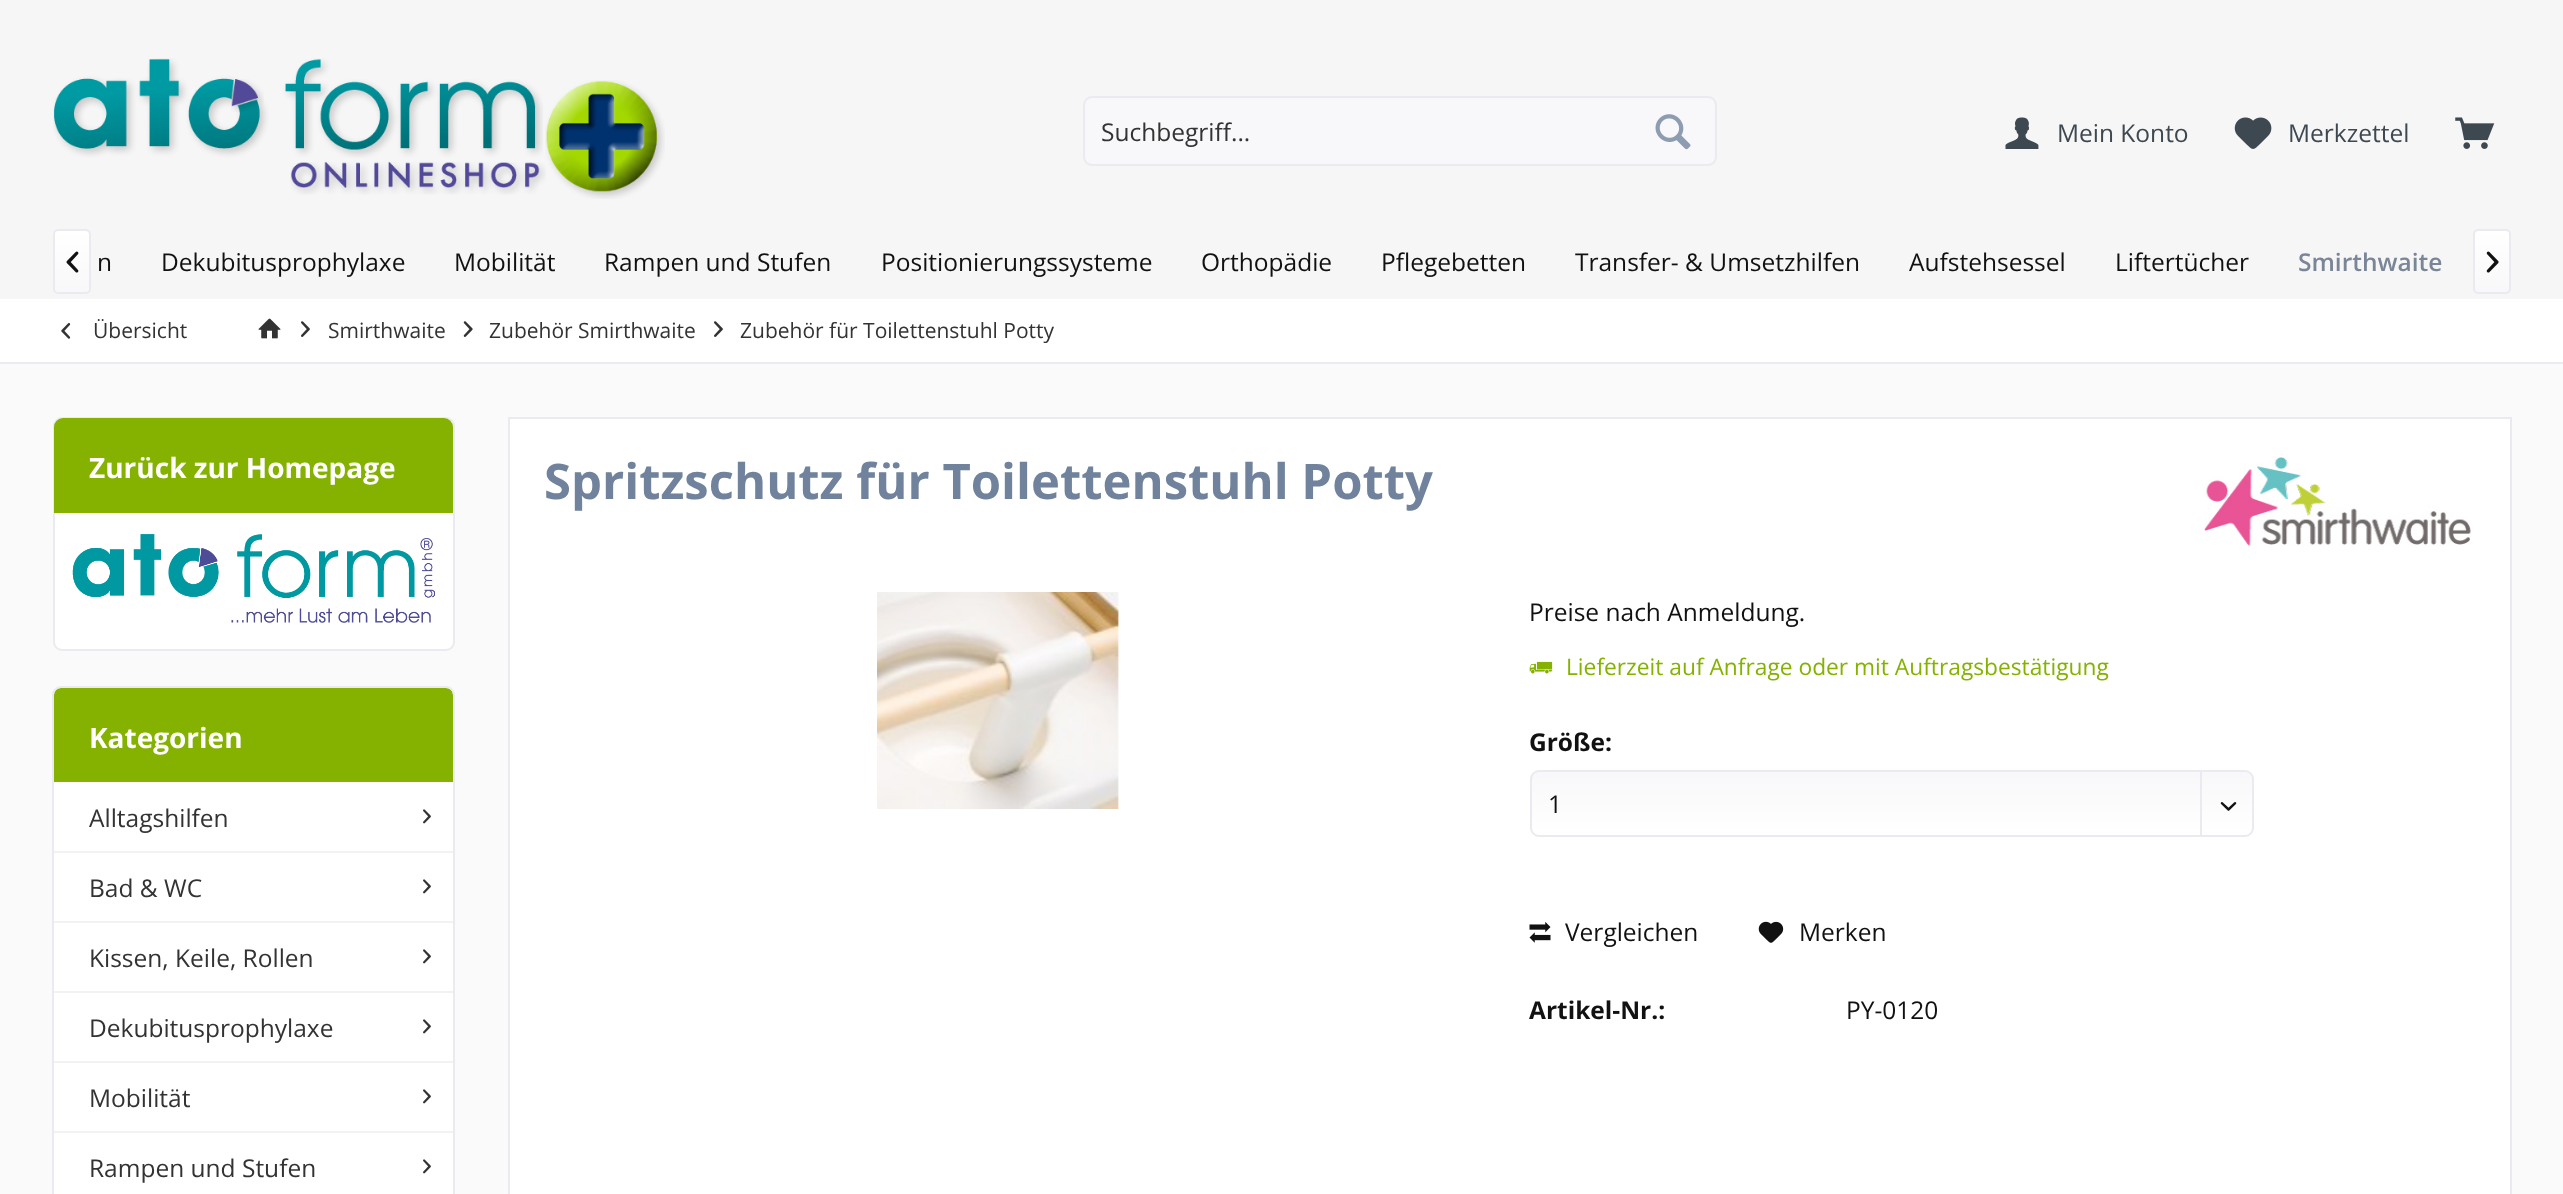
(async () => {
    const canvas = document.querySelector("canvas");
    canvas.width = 2563;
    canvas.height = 1194;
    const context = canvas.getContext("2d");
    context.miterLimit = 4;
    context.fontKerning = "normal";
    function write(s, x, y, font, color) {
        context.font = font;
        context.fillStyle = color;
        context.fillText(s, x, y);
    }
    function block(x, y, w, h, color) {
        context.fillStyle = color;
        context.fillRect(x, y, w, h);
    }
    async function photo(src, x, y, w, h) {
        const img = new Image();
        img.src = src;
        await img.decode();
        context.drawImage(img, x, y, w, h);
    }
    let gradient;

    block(0, 0, 2563, 1194, "rgb(250, 250, 250)");
    block(0, 0, 2563, 299, "rgb(246, 246, 246)");
    await photo("media/1.png", 53, 58, 612, 141);
    context.fillStyle = "rgb(248, 248, 250)";
    context.beginPath();
    context.roundRect(1084, 97, 632, 68, 8);
    context.fill();
    context.strokeStyle = "rgb(234, 234, 240)";
    context.lineWidth = 2;
    context.stroke();
    write("Suchbegriff...", 1101, 141, "24.5px Open Sans", "rgb(51, 51, 51)");
    await photo("media/2.png", 1655, 114, 36, 36);
    await photo("media/3.png", 2005, 117, 34, 32);
    write("Mein Konto", 2057, 142, "24.5px Open Sans", "rgb(62, 72, 81)");
    await photo("media/4.png", 2234, 117, 38, 32);
    write("Merkzettel", 2288, 142, "24.5px Open Sans", "rgb(62, 72, 81)");
    await photo("media/5.png", 2455, 117, 40, 32);
    gradient = context.createLinearGradient(72, 231, 72, 292);
    gradient.addColorStop(0, "rgb(255, 255, 255)");
    gradient.addColorStop(1, "rgb(248, 248, 250)");
    context.fillStyle = gradient;
    context.beginPath();
    context.roundRect(54, 231, 35, 61, 4);
    context.fill();
    context.beginPath();
    context.roundRect(54, 230, 36, 63, 4);
    context.stroke();
    await photo("media/6.png", 66, 251, 13, 22);
    write("n", 97, 271, "24.5px Open Sans", "rgb(17, 17, 17)");
    write("Dekubitusprophylaxe", 161, 271, "24.5px Open Sans", "rgb(17, 17, 17)");
    write("Mobilität", 454, 271, "24.5px Open Sans", "rgb(17, 17, 17)");
    write("Rampen und Stufen", 604, 271, "24.5px Open Sans", "rgb(17, 17, 17)");
    write("Positionierungssysteme", 881, 271, "24.5px Open Sans", "rgb(17, 17, 17)");
    write("Orthopädie", 1201, 271, "24.5px Open Sans", "rgb(17, 17, 17)");
    write("Pflegebetten", 1381, 271, "24.5px Open Sans", "rgb(17, 17, 17)");
    write("Transfer- & Umsetzhilfen", 1575, 271, "24.5px Open Sans", "rgb(17, 17, 17)");
    write("Aufstehsessel", 1909, 271, "24.5px Open Sans", "rgb(17, 17, 17)");
    write("Liftertücher", 2115, 271, "24.5px Open Sans", "rgb(17, 17, 17)");
    write("Smirthwaite", 2298, 271, "600 24.5px Open Sans", "rgb(122, 134, 151)");
    gradient = context.createLinearGradient(2492, 231, 2492, 292);
    gradient.addColorStop(0, "rgb(255, 255, 255)");
    gradient.addColorStop(1, "rgb(248, 248, 250)");
    context.fillStyle = gradient;
    context.beginPath();
    context.roundRect(2475, 231, 35, 61, 4);
    context.fill();
    context.beginPath();
    context.roundRect(2474, 230, 36, 63, 4);
    context.stroke();
    await photo("media/7.png", 2486, 251, 13, 22);
    block(0, 299, 2563, 63, "rgb(255, 255, 255)");
    block(0, 362, 2563, 2, "rgb(234, 234, 240)");
    await photo("media/8.png", 61, 323, 10, 16);
    write("Übersicht", 93, 338, "21px Open Sans", "rgb(51, 51, 51)");
    await photo("media/9.png", 258, 318, 23, 21);
    await photo("media/10.png", 301, 321, 9, 16);
    write("Smirthwaite", 328, 338, "21px Open Sans", "rgb(51, 51, 51)");
    await photo("media/11.png", 463, 321, 10, 16);
    write("Zubehör Smirthwaite", 489, 338, "21px Open Sans", "rgb(51, 51, 51)");
    await photo("media/10.png", 714, 321, 9, 16);
    write("Zubehör für Toilettenstuhl Potty", 740, 338, "21px Open Sans", "rgb(51, 51, 51)");
    context.fillStyle = "rgb(255, 255, 255)";
    context.beginPath();
    context.roundRect(54, 418, 400, 232, 8);
    context.fill();
    context.stroke();
    context.fillStyle = "rgb(133, 178, 0)";
    context.beginPath();
    context.roundRect(54, 418, 399, 95, [9, 9, 0, 0]);
    context.fill();
    write("Zurück zur Homepage", 89, 478, "bold 28px Open Sans", "rgb(255, 255, 255)");
    await photo("media/12.png", 72, 534, 363, 89);
    context.fillStyle = "rgb(133, 178, 0)";
    context.beginPath();
    context.roundRect(54, 688, 399, 94, [7, 7, 0, 0]);
    context.fill();
    context.fillStyle = "rgb(234, 234, 240)";
    context.beginPath();
    context.moveTo(61, 686);
    context.lineTo(446, 686);
    context.bezierCurveTo(451, 686, 455, 690, 455, 695);
    context.lineTo(455, 782);
    context.lineTo(52, 782);
    context.lineTo(52, 695);
    context.bezierCurveTo(52, 690, 56, 686, 61, 686);
    context.closePath();
    context.moveTo(61, 688);
    context.lineTo(446, 688);
    context.bezierCurveTo(450, 688, 453, 691, 453, 695);
    context.lineTo(453, 782);
    context.lineTo(54, 782);
    context.lineTo(54, 695);
    context.bezierCurveTo(54, 691, 57, 688, 61, 688);
    context.closePath();
    context.fill("evenodd");
    write("Kategorien", 89, 748, "bold 28px Open Sans", "rgb(255, 255, 255)");
    block(54, 782, 399, 412, "rgb(255, 255, 255)");
    context.fillStyle = "rgb(234, 234, 240)";
    context.beginPath();
    context.moveTo(52, 782);
    context.lineTo(455, 782);
    context.lineTo(455, 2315);
    context.bezierCurveTo(455, 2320, 451, 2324, 446, 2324);
    context.lineTo(61, 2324);
    context.bezierCurveTo(56, 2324, 52, 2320, 52, 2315);
    context.closePath();
    context.moveTo(54, 782);
    context.lineTo(453, 782);
    context.lineTo(453, 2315);
    context.bezierCurveTo(453, 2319, 450, 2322, 446, 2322);
    context.lineTo(61, 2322);
    context.bezierCurveTo(57, 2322, 54, 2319, 54, 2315);
    context.closePath();
    context.fill("evenodd");
    block(54, 851, 399, 2, "rgb(242, 242, 242)");
    write("Alltagshilfen", 89, 827, "24.5px Open Sans", "rgb(51, 51, 51)");
    await photo("media/13.png", 423, 809, 8, 15);
    block(54, 921, 399, 2, "rgb(242, 242, 242)");
    write("Bad & WC", 89, 897, "24.5px Open Sans", "rgb(51, 51, 51)");
    await photo("media/13.png", 423, 879, 8, 15);
    block(54, 991, 399, 2, "rgb(242, 242, 242)");
    write("Kissen, Keile, Rollen", 89, 967, "24.5px Open Sans", "rgb(51, 51, 51)");
    await photo("media/13.png", 423, 949, 8, 15);
    block(54, 1061, 399, 2, "rgb(242, 242, 242)");
    write("Dekubitusprophylaxe", 89, 1037, "24.5px Open Sans", "rgb(51, 51, 51)");
    await photo("media/13.png", 423, 1019, 8, 15);
    block(54, 1131, 399, 2, "rgb(242, 242, 242)");
    write("Mobilität", 89, 1107, "24.5px Open Sans", "rgb(51, 51, 51)");
    await photo("media/13.png", 423, 1089, 8, 15);
    write("Rampen und Stufen", 89, 1177, "24.5px Open Sans", "rgb(51, 51, 51)");
    await photo("media/13.png", 423, 1159, 8, 15);
    block(510, 419, 2000, 775, "rgb(255, 255, 255)");
    block(508, 417, 2003, 2, "rgb(234, 234, 240)");
    block(2510, 417, 2, 777, "rgb(234, 234, 240)");
    block(508, 417, 2, 777, "rgb(234, 234, 240)");
    write("Spritzschutz für Toilettenstuhl Potty", 544, 499, "bold 49px Open Sans", "rgb(112, 130, 156)");
    await photo("media/14.png", 2204, 457, 267, 89);
    await photo("media/15.png", 877, 592, 242, 217);
    write("Preise nach Anmeldung.", 1529, 621, "24.5px Open Sans", "rgb(17, 17, 17)");
    await photo("media/16.png", 1529, 661, 24, 13);
    write("Lieferzeit auf Anfrage oder mit Auftragsbestätigung", 1566, 675, "22.75px Open Sans", "rgb(133, 178, 0)");
    write("Größe:", 1529, 751, "bold 24.5px Open Sans", "rgb(17, 17, 17)");
    gradient = context.createLinearGradient(1892, 772, 1892, 835);
    gradient.addColorStop(0, "rgb(248, 248, 250)");
    gradient.addColorStop(1, "rgb(255, 255, 255)");
    context.fillStyle = gradient;
    context.beginPath();
    context.roundRect(1531, 772, 721, 63, 7);
    context.fill();
    context.beginPath();
    context.roundRect(1531, 771, 722, 65, 8);
    context.stroke();
    write("1", 1548, 813, "24.5px Open Sans", "rgb(17, 17, 17)");
    block(2200, 772, 2, 63, "rgb(234, 234, 240)");
    await photo("media/17.png", 2220, 802, 17, 9);
    await photo("media/18.png", 1529, 922, 22, 21);
    write("Vergleichen", 1565, 941, "24.5px Open Sans", "rgb(17, 17, 17)");
    await photo("media/19.png", 1758, 921, 26, 22);
    write("Merken", 1799, 941, "24.5px Open Sans", "rgb(17, 17, 17)");
    write("Artikel-Nr.:", 1529, 1019, "bold 24.5px Open Sans", "rgb(17, 17, 17)");
    write("PY-0120", 1846, 1019, "24.5px Open Sans", "rgb(17, 17, 17)");
})();
